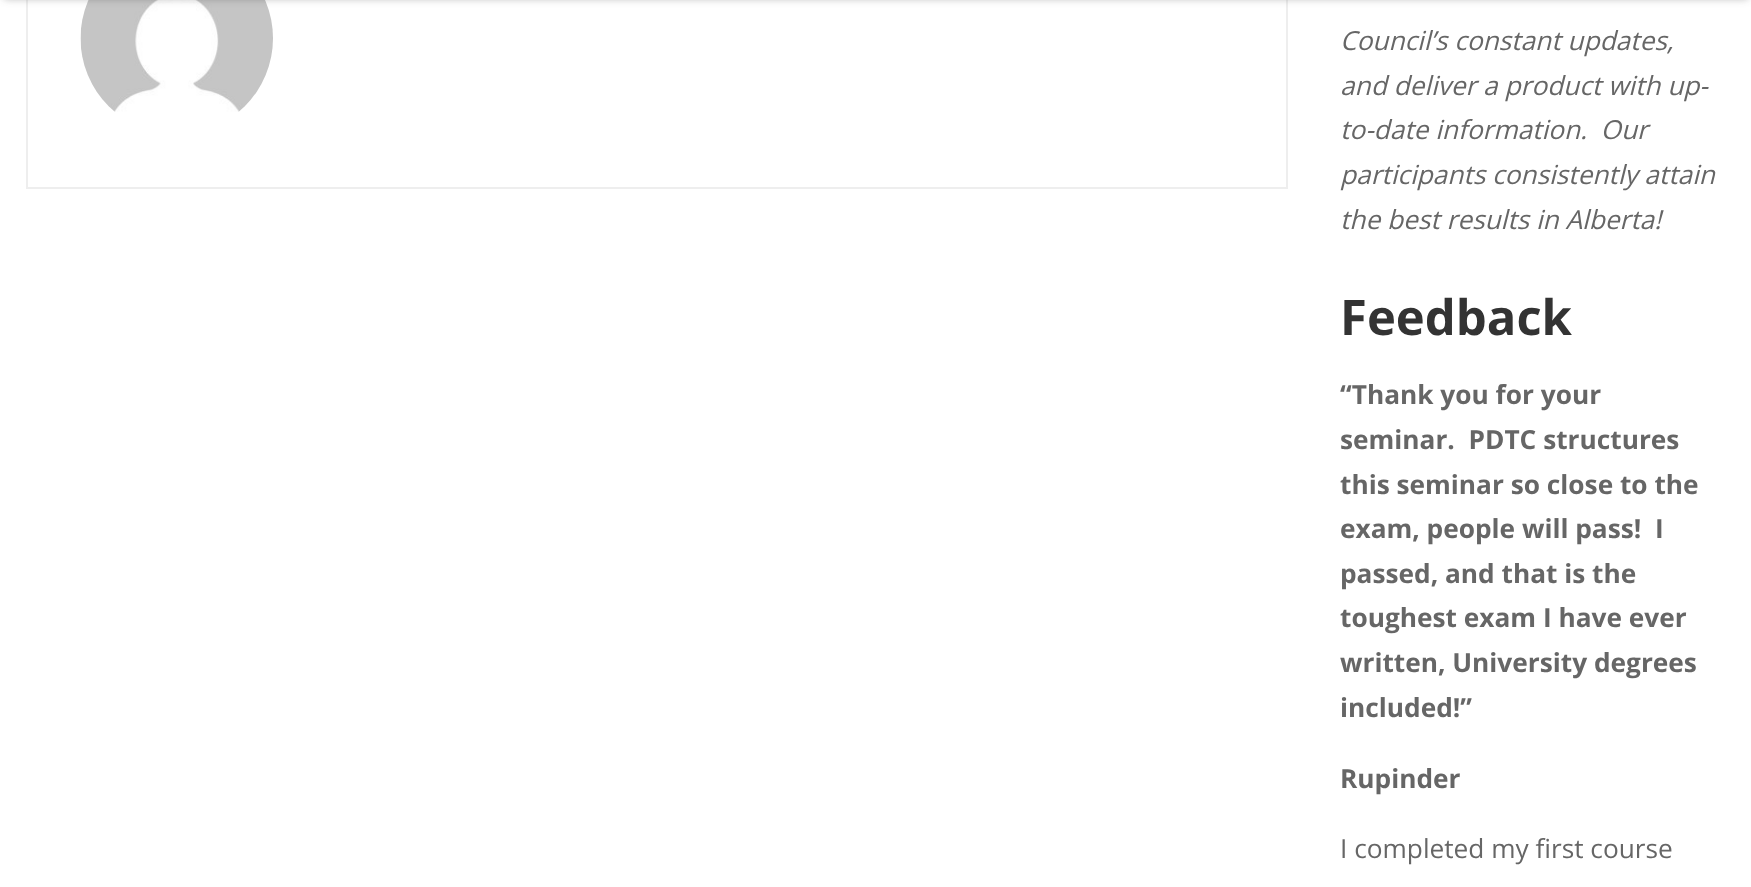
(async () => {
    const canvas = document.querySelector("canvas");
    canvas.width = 1751;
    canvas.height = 887;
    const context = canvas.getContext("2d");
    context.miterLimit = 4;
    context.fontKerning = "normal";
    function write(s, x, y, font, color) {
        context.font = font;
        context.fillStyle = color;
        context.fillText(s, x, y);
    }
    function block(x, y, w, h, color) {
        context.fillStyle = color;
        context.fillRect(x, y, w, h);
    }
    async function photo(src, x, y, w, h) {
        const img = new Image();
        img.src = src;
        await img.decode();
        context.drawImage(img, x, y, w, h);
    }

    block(0, 0, 1751, 887, "rgb(255, 255, 255)");
    context.strokeStyle = "rgb(238, 238, 238)";
    context.lineWidth = 2;
    context.strokeRect(27, -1, 1260, 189);
    await photo("media/1.png", 80, 0, 193, 112);
    context.fillStyle = "rgba(42, 42, 42, 0.4)";
    context.filter = "blur(4.5px)";
    context.beginPath();
    context.rect(4, -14, 1744, 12);
    context.fill();
    context.filter = "none";
    write("Council’s constant updates,", 1340, 50, "italic 26.25px Open Sans", "rgb(102, 102, 102)");
    write("and deliver a product with up-", 1340, 95, "italic 26.25px Open Sans", "rgb(102, 102, 102)");
    write("to-date information.  Our", 1340, 139, "italic 26.25px Open Sans", "rgb(102, 102, 102)");
    write("participants consistently attain", 1340, 184, "italic 26.25px Open Sans", "rgb(102, 102, 102)");
    write("the best results in Alberta!", 1340, 229, "italic 26.25px Open Sans", "rgb(102, 102, 102)");
    write("Feedback", 1340, 335, "bold 49px Open Sans", "rgb(51, 51, 51)");
    write("“Thank you for your", 1340, 404, "bold 26.25px Open Sans", "rgb(102, 102, 102)");
    write("seminar.  PDTC structures", 1340, 449, "bold 26.25px Open Sans", "rgb(102, 102, 102)");
    write("this seminar so close to the", 1340, 494, "bold 26.25px Open Sans", "rgb(102, 102, 102)");
    write("exam, people will pass!  I", 1340, 538, "bold 26.25px Open Sans", "rgb(102, 102, 102)");
    write("passed, and that is the", 1340, 583, "bold 26.25px Open Sans", "rgb(102, 102, 102)");
    write("toughest exam I have ever", 1340, 627, "bold 26.25px Open Sans", "rgb(102, 102, 102)");
    write("written, University degrees", 1340, 672, "bold 26.25px Open Sans", "rgb(102, 102, 102)");
    write("included!”", 1340, 717, "bold 26.25px Open Sans", "rgb(102, 102, 102)");
    write("Rupinder", 1340, 788, "bold 26.25px Open Sans", "rgb(102, 102, 102)");
    write("I completed my first course", 1340, 858, "26.25px Open Sans", "rgb(102, 102, 102)");
})();
